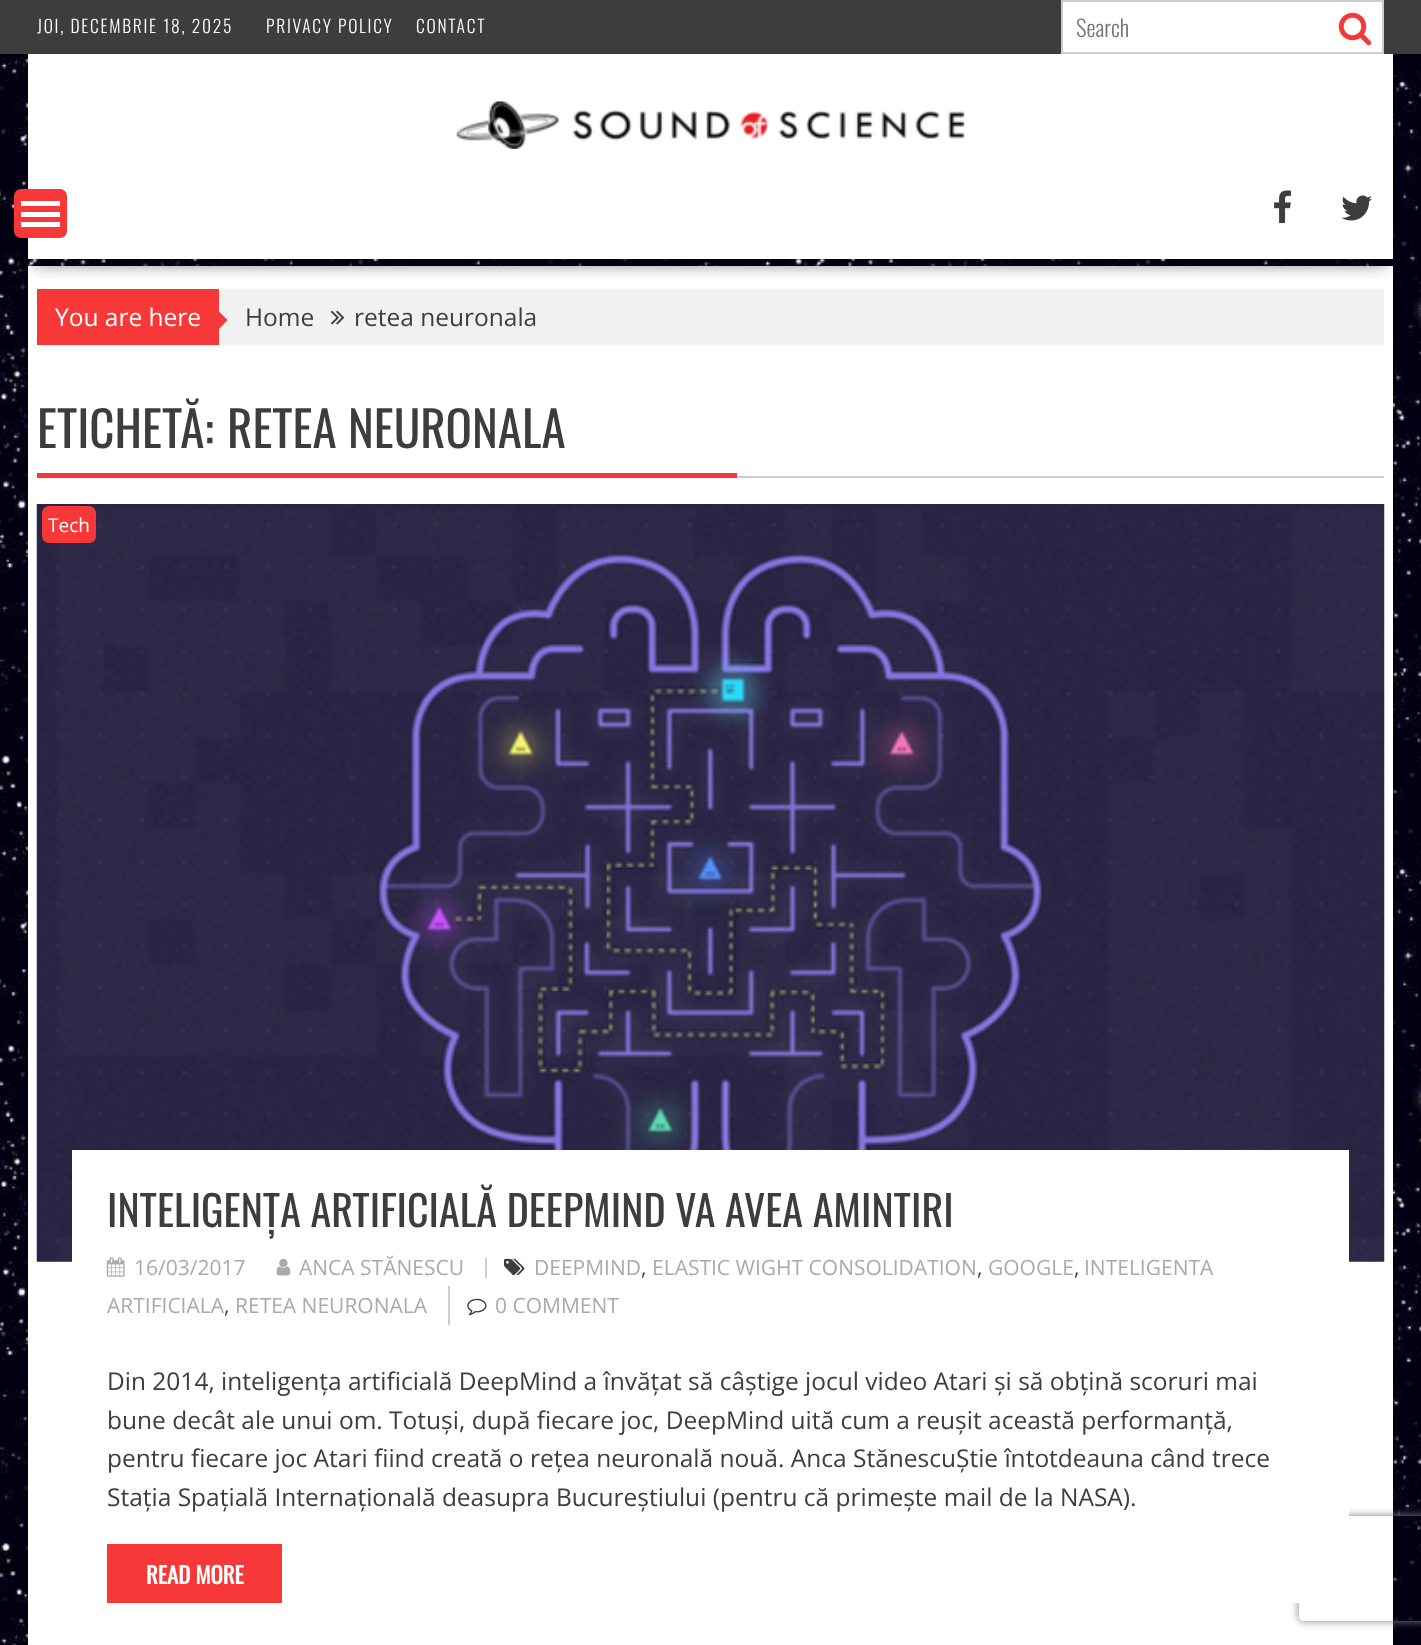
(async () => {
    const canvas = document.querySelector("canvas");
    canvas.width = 1421;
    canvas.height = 1645;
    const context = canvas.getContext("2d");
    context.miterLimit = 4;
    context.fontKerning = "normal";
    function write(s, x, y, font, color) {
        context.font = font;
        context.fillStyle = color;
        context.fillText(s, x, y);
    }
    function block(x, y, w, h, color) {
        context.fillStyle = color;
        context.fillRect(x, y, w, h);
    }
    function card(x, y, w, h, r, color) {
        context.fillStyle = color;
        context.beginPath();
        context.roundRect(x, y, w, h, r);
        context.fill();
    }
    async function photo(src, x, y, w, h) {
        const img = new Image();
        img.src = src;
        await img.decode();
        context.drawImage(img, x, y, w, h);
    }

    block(0, 0, 1421, 1645, "rgb(255, 255, 255)");
    await photo("media/1.png", 0, 54, 1421, 1591);
    block(0, 0, 1421, 54, "rgb(61, 61, 61)");
    context.letterSpacing = "1.75px";
    write("JOI, DECEMBRIE 18, 2025", 37, 33, "300 17.5px Oswald", "rgb(255, 255, 255)");
    write("PRIVACY POLICY", 266, 33, "300 17.5px Oswald", "rgb(255, 255, 255)");
    write("CONTACT", 416, 33, "300 17.5px Oswald", "rgb(255, 255, 255)");
    context.beginPath();
    context.rect(1062, 1, 321, 52);
    context.fill();
    context.strokeStyle = "rgb(204, 204, 204)";
    context.lineWidth = 2;
    context.stroke();
    context.letterSpacing = "0px";
    write("Search", 1076, 37, "300 22.75px Oswald", "rgb(117, 117, 117)");
    await photo("media/2.png", 1338, 12, 34, 34);
    block(28, 54, 1365, 121, "rgb(255, 255, 255)");
    await photo("media/3.png", 456, 101, 509, 48);
    block(28, 266, 1365, 1379, "rgb(255, 255, 255)");
    block(219, 289, 1165, 56, "rgb(241, 241, 241)");
    context.save();
    context.beginPath();
    context.rect(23, 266, 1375, 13);
    context.clip();
    context.fillStyle = "rgba(0, 0, 0, 0.75)";
    context.filter = "blur(9.5px)";
    context.beginPath();
    context.rect(35, 240, 1351, 21);
    context.fill();
    context.filter = "none";
    context.restore();
    block(28, 175, 1365, 84, "rgb(255, 255, 255)");
    await photo("media/4.png", 1274, 190, 17, 33);
    await photo("media/5.png", 1341, 195, 31, 26);
    context.fillStyle = "rgb(247, 56, 56)";
    context.beginPath();
    context.roundRect(15, 190, 51, 47, 6);
    context.fill();
    context.strokeStyle = "rgb(247, 56, 56)";
    context.stroke();
    block(21, 222, 39, 5, "rgb(255, 255, 255)");
    block(21, 212, 39, 5, "rgb(255, 255, 255)");
    block(21, 201, 39, 5, "rgb(255, 255, 255)");
    block(37, 289, 182, 56, "rgb(247, 56, 56)");
    write("You are here", 55, 326, "24.5px Open Sans", "rgb(255, 255, 255)");
    context.fillStyle = "rgb(247, 56, 56)";
    context.beginPath();
    context.moveTo(219, 329);
    context.lineTo(219, 311.5);
    context.lineTo(227.5, 320);
    context.closePath();
    context.fill();
    write("Home", 245, 326, "24.5px Open Sans", "rgb(61, 61, 61)");
    await photo("media/6.png", 331, 310, 14, 15);
    write("retea neuronala", 354, 326, "24.5px Open Sans", "rgb(61, 61, 61)");
    block(737, 476, 647, 2, "rgb(204, 204, 204)");
    write("ETICHETĂ:", 37, 448, "49px Oswald", "rgb(61, 61, 61)");
    write("RETEA NEURONALA", 227, 448, "49px Oswald", "rgb(61, 61, 61)");
    block(37, 473, 700, 5, "rgb(247, 56, 56)");
    await photo("media/7.png", 36, 504, 1349, 758);
    card(42, 506, 54, 37, 7, "rgb(247, 56, 56)");
    write("Tech", 48, 532, "19px Open Sans", "rgb(255, 255, 255)");
    context.save();
    context.beginPath();
    context.moveTo(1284, 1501);
    context.lineTo(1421, 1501);
    context.lineTo(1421, 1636);
    context.lineTo(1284, 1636);
    context.closePath();
    context.moveTo(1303, 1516);
    context.lineTo(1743, 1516);
    context.bezierCurveTo(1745, 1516, 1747, 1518, 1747, 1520);
    context.lineTo(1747, 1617);
    context.bezierCurveTo(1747, 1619, 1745, 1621, 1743, 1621);
    context.lineTo(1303, 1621);
    context.bezierCurveTo(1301, 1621, 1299, 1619, 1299, 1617);
    context.lineTo(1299, 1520);
    context.bezierCurveTo(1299, 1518, 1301, 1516, 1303, 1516);
    context.closePath();
    context.clip("evenodd");
    context.fillStyle = "rgb(128, 128, 128)";
    context.filter = "blur(4.5px)";
    context.beginPath();
    context.roundRect(1299, 1516, 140, 105, 4);
    context.fill();
    context.filter = "none";
    context.restore();
    block(72, 1150, 1277, 453, "rgb(255, 255, 255)");
    write("INTELIGENȚA ARTIFICIALĂ DEEPMIND VA AVEA AMINTIRI", 107, 1227, "42px Oswald", "rgb(61, 61, 61)");
    await photo("media/8.png", 276, 1258, 15, 18);
    write("ANCA STĂNESCU", 299, 1275, "21px Open Sans", "rgb(170, 170, 170)");
    block(485, 1258, 2, 20, "rgb(204, 204, 204)");
    await photo("media/9.png", 504, 1258, 21, 18);
    write("DEEPMIND", 534, 1275, "21px Open Sans", "rgb(170, 170, 170)");
    write(",", 641, 1275, "21px Open Sans", "rgb(61, 61, 61)");
    write("ELASTIC WIGHT CONSOLIDATION", 652, 1275, "21px Open Sans", "rgb(170, 170, 170)");
    write(",", 977, 1275, "21px Open Sans", "rgb(61, 61, 61)");
    write("GOOGLE", 988, 1275, "21px Open Sans", "rgb(170, 170, 170)");
    write(",", 1074, 1275, "21px Open Sans", "rgb(61, 61, 61)");
    write("INTELIGENTA", 1084, 1275, "21px Open Sans", "rgb(170, 170, 170)");
    write("ARTIFICIALA", 107, 1313, "21px Open Sans", "rgb(170, 170, 170)");
    write(",", 224, 1313, "21px Open Sans", "rgb(61, 61, 61)");
    write("RETEA NEURONALA", 235, 1313, "21px Open Sans", "rgb(170, 170, 170)");
    await photo("media/10.png", 106, 1257, 19, 20);
    write("16/03/2017", 134, 1275, "21px Open Sans", "rgb(170, 170, 170)");
    block(448, 1286, 2, 39, "rgb(204, 204, 204)");
    await photo("media/11.png", 467, 1298, 20, 18);
    write("0 COMMENT", 495, 1313, "21px Open Sans", "rgb(170, 170, 170)");
    write("Din 2014, inteligența artificială DeepMind a învățat să câștige jocul video Atari și să obțină scoruri mai", 107, 1390, "24.5px Open Sans", "rgb(61, 61, 61)");
    write("bune decât ale unui om. Totuși, după fiecare joc, DeepMind uită cum a reușit această performanță,", 107, 1429, "24.5px Open Sans", "rgb(61, 61, 61)");
    write("pentru fiecare joc Atari fiind creată o rețea neuronală nouă. Anca StănescuȘtie întotdeauna când trece", 107, 1467, "24.5px Open Sans", "rgb(61, 61, 61)");
    write("Stația Spațială Internațională deasupra Bucureștiului (pentru că primește mail de la NASA).", 107, 1506, "24.5px Open Sans", "rgb(61, 61, 61)");
    block(107, 1544, 175, 59, "rgb(247, 56, 56)");
    write("READ MORE", 146, 1584, "bold 22.75px Oswald", "rgb(255, 255, 255)");
})();
